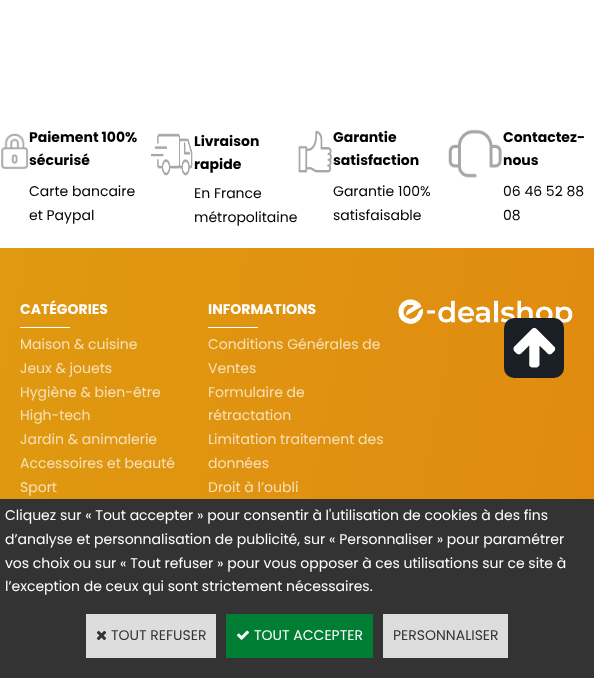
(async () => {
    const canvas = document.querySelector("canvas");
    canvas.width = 594;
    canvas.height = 678;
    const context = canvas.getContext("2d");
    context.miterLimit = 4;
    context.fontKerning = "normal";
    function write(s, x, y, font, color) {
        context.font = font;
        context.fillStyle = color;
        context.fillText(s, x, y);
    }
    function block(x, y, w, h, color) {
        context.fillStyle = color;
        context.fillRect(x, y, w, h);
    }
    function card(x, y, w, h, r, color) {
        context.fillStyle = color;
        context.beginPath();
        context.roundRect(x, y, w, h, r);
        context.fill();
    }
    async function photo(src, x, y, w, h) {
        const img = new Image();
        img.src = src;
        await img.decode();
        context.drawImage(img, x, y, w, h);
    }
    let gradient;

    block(0, 0, 594, 678, "rgb(255, 255, 255)");
    gradient = context.createLinearGradient(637, 459, -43, 327);
    gradient.addColorStop(0, "rgb(224, 138, 16)");
    gradient.addColorStop(1, "rgb(224, 154, 16)");
    context.fillStyle = gradient;
    context.fillRect(0, 248, 594, 251);
    await photo("media/1.png", 1, 133, 28, 37);
    write("Paiement 100%", 29, 142, "bold 14px Poppins", "rgb(0, 0, 0)");
    write("sécurisé", 29, 165, "bold 14px Poppins", "rgb(0, 0, 0)");
    write("Carte bancaire", 29, 196, "14px Poppins", "rgb(0, 0, 0)");
    write("et Paypal", 29, 220, "14px Poppins", "rgb(0, 0, 0)");
    await photo("media/2.png", 151, 133, 42, 43);
    write("Livraison", 194, 146, "bold 14px Poppins", "rgb(0, 0, 0)");
    write("rapide", 194, 169, "bold 14px Poppins", "rgb(0, 0, 0)");
    write("En France", 194, 198, "14px Poppins", "rgb(0, 0, 0)");
    write("métropolitaine", 194, 222, "14px Poppins", "rgb(0, 0, 0)");
    await photo("media/3.png", 298, 130, 34, 43);
    write("Garantie", 333, 142, "bold 14px Poppins", "rgb(0, 0, 0)");
    write("satisfaction", 333, 165, "bold 14px Poppins", "rgb(0, 0, 0)");
    write("Garantie 100%", 333, 196, "14px Poppins", "rgb(0, 0, 0)");
    write("satisfaisable", 333, 220, "14px Poppins", "rgb(0, 0, 0)");
    await photo("media/4.png", 448, 129, 54, 49);
    write("Contactez-", 503, 142, "bold 14px Poppins", "rgb(0, 0, 0)");
    write("nous", 503, 165, "bold 14px Poppins", "rgb(0, 0, 0)");
    write("06 46 52 88", 503, 196, "14px Poppins", "rgb(0, 0, 0)");
    write("08", 503, 220, "14px Poppins", "rgb(0, 0, 0)");
    write("CATÉGORIES", 20, 314, "bold 14px Poppins", "rgb(255, 255, 255)");
    block(20, 327, 50, 1, "rgb(255, 255, 255)");
    write("Maison & cuisine", 20, 349, "14px Poppins", "rgb(246, 224, 183)");
    write("Jeux & jouets", 20, 373, "14px Poppins", "rgb(246, 224, 183)");
    write("Hygiène & bien-être", 20, 397, "14px Poppins", "rgb(246, 224, 183)");
    write("High-tech", 20, 420, "14px Poppins", "rgb(246, 224, 183)");
    write("Jardin & animalerie", 20, 444, "14px Poppins", "rgb(246, 224, 183)");
    write("Accessoires et beauté", 20, 468, "14px Poppins", "rgb(246, 224, 183)");
    write("Sport", 20, 492, "14px Poppins", "rgb(246, 224, 183)");
    write("INFORMATIONS", 208, 314, "bold 14px Poppins", "rgb(255, 255, 255)");
    block(208, 327, 50, 1, "rgb(255, 255, 255)");
    write("Conditions Générales de", 208, 349, "14px Poppins", "rgb(246, 224, 183)");
    write("Ventes", 208, 373, "14px Poppins", "rgb(246, 224, 183)");
    write("Formulaire de", 208, 397, "14px Poppins", "rgb(246, 224, 183)");
    write("rétractation", 208, 420, "14px Poppins", "rgb(246, 224, 183)");
    write("Limitation traitement des", 208, 444, "14px Poppins", "rgb(246, 224, 183)");
    write("données", 208, 468, "14px Poppins", "rgb(246, 224, 183)");
    write("Droit à l’oubli", 208, 492, "14px Poppins", "rgb(246, 224, 183)");
    await photo("media/5.png", 398, 299, 175, 25);
    card(504, 318, 60, 60, 10, "rgb(26, 31, 38)");
    await photo("media/6.png", 513, 328, 43, 40);
    block(0, 499, 594, 179, "rgb(51, 51, 51)");
    write("Cliquez sur « Tout accepter » pour consentir à l'utilisation de cookies à des fins", 5, 520, "14px Poppins", "rgb(255, 255, 255)");
    write("d’analyse et personnalisation de publicité, sur « Personnaliser » pour paramétrer", 5, 544, "14px Poppins", "rgb(255, 255, 255)");
    write("vos choix ou sur « Tout refuser » pour vous opposer à ces utilisations sur ce site à", 5, 568, "14px Poppins", "rgb(255, 255, 255)");
    write("l’exception de ceux qui sont strictement nécessaires.", 5, 591, "14px Poppins", "rgb(255, 255, 255)");
    block(86, 614, 130, 44, "rgb(221, 221, 221)");
    await photo("media/7.png", 96, 630, 11, 11);
    write("TOUT REFUSER", 111, 640, "14px Poppins", "rgb(51, 51, 51)");
    block(226, 614, 147, 44, "rgb(0, 126, 51)");
    await photo("media/8.png", 237, 630, 12, 10);
    write("TOUT ACCEPTER", 254, 640, "14px Poppins", "rgb(255, 255, 255)");
    block(383, 614, 125, 44, "rgb(221, 221, 221)");
    write("PERSONNALISER", 393, 640, "14px Poppins", "rgb(51, 51, 51)");
})();
